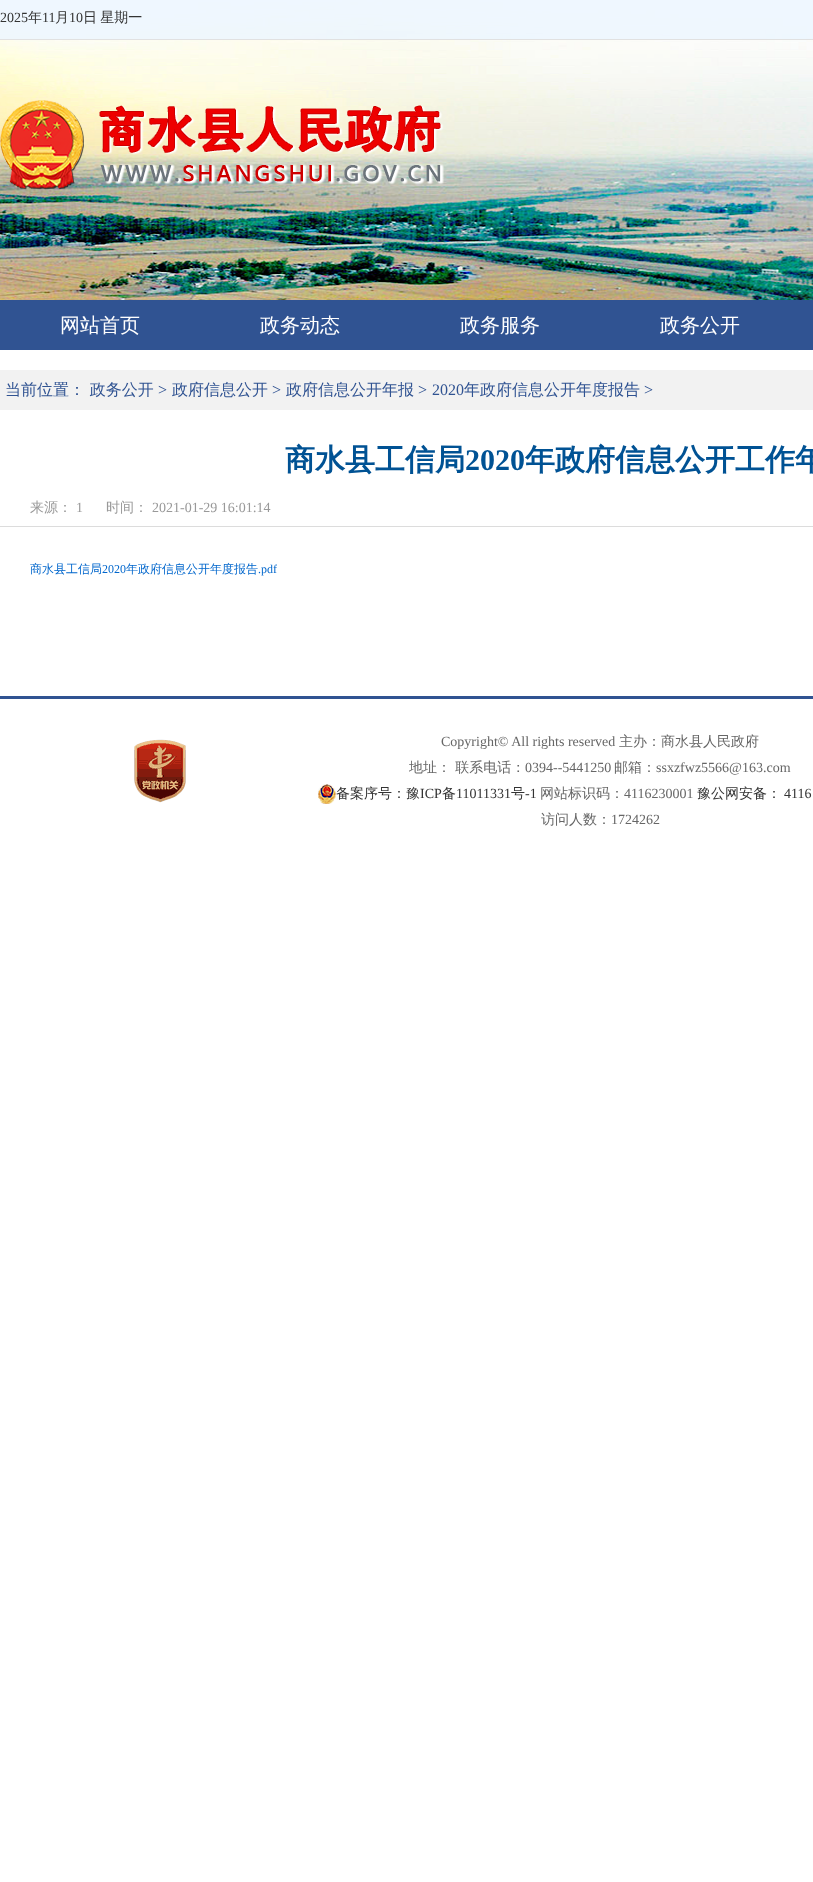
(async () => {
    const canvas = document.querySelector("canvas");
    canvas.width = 813;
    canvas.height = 1882;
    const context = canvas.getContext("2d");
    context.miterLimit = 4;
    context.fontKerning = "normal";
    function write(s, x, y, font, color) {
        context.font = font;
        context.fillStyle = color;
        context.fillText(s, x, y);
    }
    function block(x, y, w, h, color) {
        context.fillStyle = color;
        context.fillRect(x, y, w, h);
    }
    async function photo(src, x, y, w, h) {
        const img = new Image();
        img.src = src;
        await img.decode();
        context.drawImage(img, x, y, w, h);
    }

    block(0, 0, 813, 1882, "rgb(255, 255, 255)");
    await photo("media/1.png", 0, 0, 813, 300);
    block(0, 0, 813, 39, "rgba(235, 245, 255, 0.8)");
    block(0, 39, 813, 1, "rgb(225, 225, 225)");
    write("2025", 0, 22, "14px Liberation Serif", "rgb(51, 51, 51)");
    write("年", 28, 22, "500 14px WenQuanYi Zen Hei", "rgb(51, 51, 51)");
    write("11", 42, 22, "14px Liberation Serif", "rgb(51, 51, 51)");
    write("月", 55, 22, "500 14px WenQuanYi Zen Hei", "rgb(51, 51, 51)");
    write("10", 69, 22, "14px Liberation Serif", "rgb(51, 51, 51)");
    context.wordSpacing = "-1px";
    write("日 星期一", 83, 22, "500 14px WenQuanYi Zen Hei", "rgb(51, 51, 51)");
    await photo("media/2.png", 0, 100, 444, 90);
    block(0, 300, 813, 50, "rgb(48, 83, 146)");
    context.wordSpacing = "0px";
    write("网站首页", 60, 332, "500 20px WenQuanYi Zen Hei", "rgb(255, 255, 255)");
    write("政务动态", 260, 332, "500 20px WenQuanYi Zen Hei", "rgb(255, 255, 255)");
    write("政务服务", 460, 332, "500 20px WenQuanYi Zen Hei", "rgb(255, 255, 255)");
    write("政务公开", 660, 332, "500 20px WenQuanYi Zen Hei", "rgb(255, 255, 255)");
    block(0, 370, 813, 40, "rgb(242, 242, 242)");
    write("当前位置： 政务公开", 5, 395, "500 16px WenQuanYi Zen Hei", "rgb(48, 83, 146)");
    write(">", 158, 395, "16px Liberation Serif", "rgb(48, 83, 146)");
    write("政府信息公开", 172, 395, "500 16px WenQuanYi Zen Hei", "rgb(48, 83, 146)");
    write(">", 272, 395, "16px Liberation Serif", "rgb(48, 83, 146)");
    write("政府信息公开年报", 286, 395, "500 16px WenQuanYi Zen Hei", "rgb(48, 83, 146)");
    write(">", 418, 395, "16px Liberation Serif", "rgb(48, 83, 146)");
    write("2020", 432, 395, "16px Liberation Serif", "rgb(48, 83, 146)");
    write("年政府信息公开年度报告", 464, 395, "500 16px WenQuanYi Zen Hei", "rgb(48, 83, 146)");
    write(">", 644, 395, "16px Liberation Serif", "rgb(48, 83, 146)");
    write("商水县工信局", 285, 470, "bold 30px WenQuanYi Zen Hei", "rgb(0, 82, 148)");
    write("2020", 465, 470, "bold 30px Liberation Serif", "rgb(0, 82, 148)");
    write("年政府信息公开工作年", 525, 470, "bold 30px WenQuanYi Zen Hei", "rgb(0, 82, 148)");
    block(0, 526, 813, 1, "rgb(220, 220, 220)");
    write("来源：", 30, 512, "500 14px WenQuanYi Zen Hei", "rgb(153, 153, 153)");
    write("1", 76, 512, "14px Liberation Serif", "rgb(153, 153, 153)");
    write("时间：", 106, 512, "500 14px WenQuanYi Zen Hei", "rgb(153, 153, 153)");
    write("2021-01-29 16:01:14", 152, 512, "14px Liberation Serif", "rgb(153, 153, 153)");
    write("商水县工信局", 30, 573, "500 12px WenQuanYi Zen Hei", "rgb(0, 102, 204)");
    write("2020", 102, 573, "12px Liberation Serif", "rgb(0, 102, 204)");
    write("年政府信息公开年度报告", 126, 573, "500 12px WenQuanYi Zen Hei", "rgb(0, 102, 204)");
    write(".pdf", 258, 573, "12px Liberation Serif", "rgb(0, 102, 204)");
    block(0, 696, 813, 3, "rgb(48, 83, 146)");
    await photo("media/3.png", 134, 739, 52, 64);
    write("Copyright© All rights reserved", 441, 746, "14px Liberation Serif", "rgb(102, 102, 102)");
    write("主办：商水县人民政府", 619, 746, "500 14px WenQuanYi Zen Hei", "rgb(102, 102, 102)");
    write("地址： 联系电话：", 409, 772, "500 14px WenQuanYi Zen Hei", "rgb(102, 102, 102)");
    write("0394--5441250", 525, 772, "14px Liberation Serif", "rgb(102, 102, 102)");
    write("邮箱：", 614, 772, "500 14px WenQuanYi Zen Hei", "rgb(102, 102, 102)");
    write("ssxzfwz5566@163.com", 656, 772, "14px Liberation Serif", "rgb(102, 102, 102)");
    await photo("media/4.png", 318, 784, 18, 20);
    write("备案序号：豫", 336, 798, "500 14px WenQuanYi Zen Hei", "rgb(51, 51, 51)");
    write("ICP", 420, 798, "14px Liberation Serif", "rgb(51, 51, 51)");
    write("备", 442, 798, "500 14px WenQuanYi Zen Hei", "rgb(51, 51, 51)");
    write("11011331", 456, 798, "14px Liberation Serif", "rgb(51, 51, 51)");
    write("号", 511, 798, "500 14px WenQuanYi Zen Hei", "rgb(51, 51, 51)");
    write("-1", 525, 798, "14px Liberation Serif", "rgb(51, 51, 51)");
    write("网站标识码：", 540, 798, "500 14px WenQuanYi Zen Hei", "rgb(102, 102, 102)");
    write("4116230001", 624, 798, "14px Liberation Serif", "rgb(102, 102, 102)");
    write("豫公网安备：", 697, 798, "500 14px WenQuanYi Zen Hei", "rgb(51, 51, 51)");
    write("4116", 784, 798, "14px Liberation Serif", "rgb(51, 51, 51)");
    write("访问人数：", 541, 824, "500 14px WenQuanYi Zen Hei", "rgb(102, 102, 102)");
    write("1724262", 611, 824, "14px Liberation Serif", "rgb(102, 102, 102)");
})();
